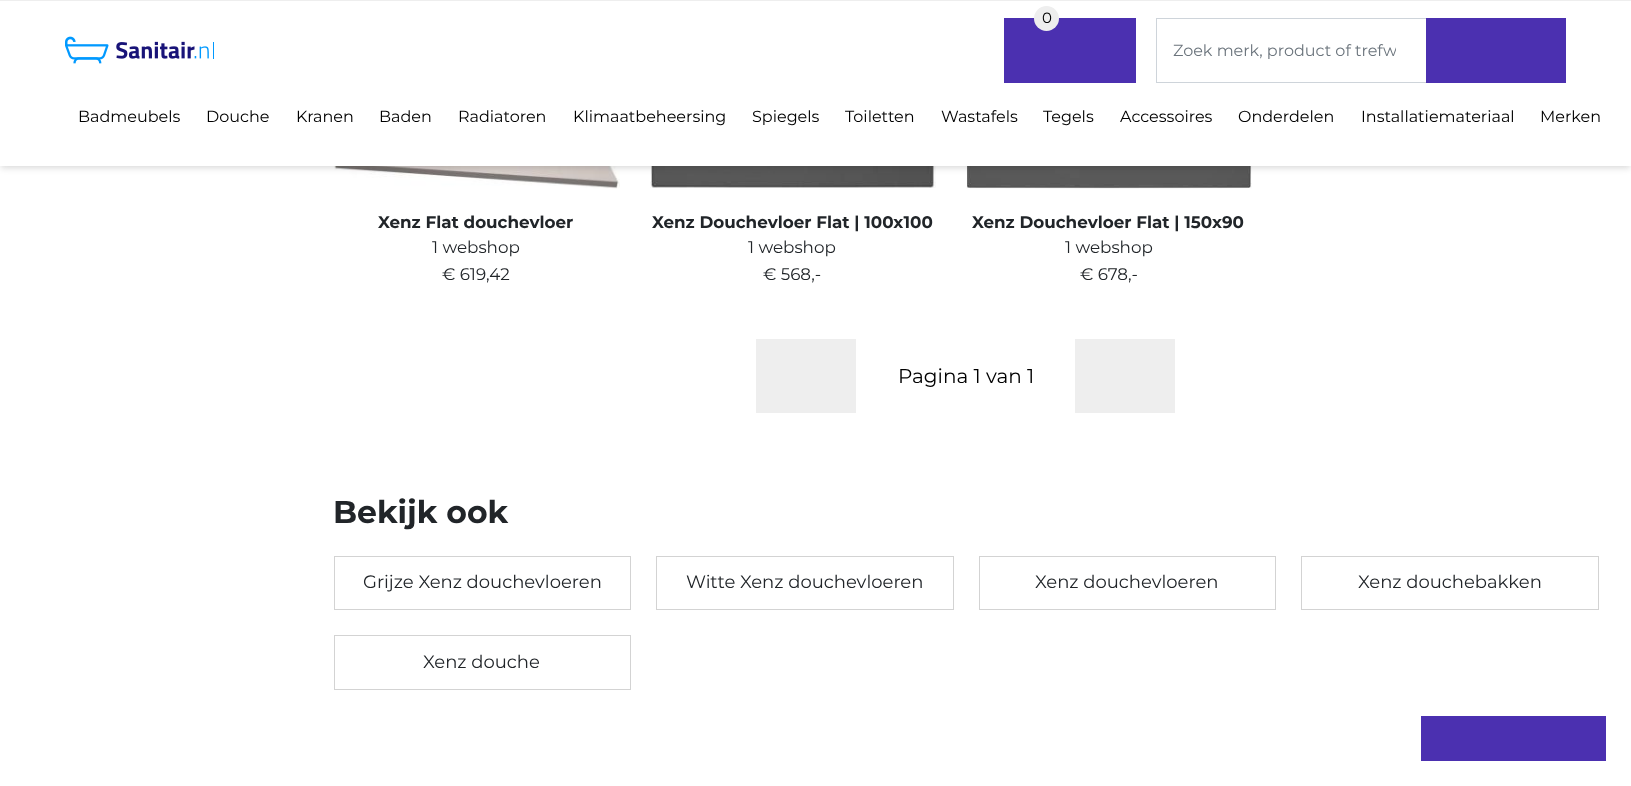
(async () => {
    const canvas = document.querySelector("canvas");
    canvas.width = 1631;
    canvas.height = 786;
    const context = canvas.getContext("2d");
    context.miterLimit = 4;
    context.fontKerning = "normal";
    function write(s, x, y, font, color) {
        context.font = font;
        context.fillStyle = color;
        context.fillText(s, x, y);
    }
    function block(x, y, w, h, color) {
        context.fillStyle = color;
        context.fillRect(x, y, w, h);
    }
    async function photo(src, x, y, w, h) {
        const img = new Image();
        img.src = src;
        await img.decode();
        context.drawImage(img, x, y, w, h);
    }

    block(0, 0, 1631, 786, "rgb(255, 255, 255)");
    await photo("media/2.png", 334, 166, 286, 23);
    await photo("media/3.png", 650, 166, 286, 22);
    await photo("media/4.png", 966, 166, 286, 23);
    context.fillStyle = "rgba(0, 0, 0, 0.15)";
    context.filter = "blur(3px)";
    context.beginPath();
    context.rect(1, 4, 1629, 164);
    context.fill();
    context.filter = "none";
    block(0, 1, 1631, 165, "rgb(255, 255, 255)");
    block(0, 0, 1631, 1, "rgb(238, 238, 238)");
    await photo("media/1.png", 65, 36, 149, 28);
    block(1004, 18, 132, 65, "rgb(75, 48, 176)");
    context.fillStyle = "rgb(238, 238, 238)";
    context.beginPath();
    context.arc(1046.5, 18.5, 12.5, 0, Math.PI * 2);
    context.fill();
    write("0", 1042, 23, "15px Montserrat", "rgb(0, 0, 0)");
    context.strokeStyle = "rgb(206, 212, 218)";
    context.strokeRect(1156.5, 18.5, 409, 64);
    context.save();
    context.beginPath();
    context.rect(1173, 41, 223, 19);
    context.clip();
    write("Zoek merk, product of trefw", 1173, 56, "16px Montserrat", "rgb(108, 117, 125)");
    context.restore();
    block(1426, 18, 140, 65, "rgb(75, 48, 176)");
    write("Badmeubels", 78, 122, "16px Montserrat", "rgb(0, 0, 0)");
    write("Douche", 206, 122, "16px Montserrat", "rgb(0, 0, 0)");
    write("Kranen", 296, 122, "16px Montserrat", "rgb(0, 0, 0)");
    write("Baden", 379, 122, "16px Montserrat", "rgb(0, 0, 0)");
    write("Radiatoren", 458, 122, "16px Montserrat", "rgb(0, 0, 0)");
    write("Klimaatbeheersing", 573, 122, "16px Montserrat", "rgb(0, 0, 0)");
    write("Spiegels", 752, 122, "16px Montserrat", "rgb(0, 0, 0)");
    write("Toiletten", 845, 122, "16px Montserrat", "rgb(0, 0, 0)");
    write("Wastafels", 941, 122, "16px Montserrat", "rgb(0, 0, 0)");
    write("Tegels", 1043, 122, "16px Montserrat", "rgb(0, 0, 0)");
    write("Accessoires", 1120, 122, "16px Montserrat", "rgb(0, 0, 0)");
    write("Onderdelen", 1238, 122, "16px Montserrat", "rgb(0, 0, 0)");
    write("Installatiemateriaal", 1361, 122, "16px Montserrat", "rgb(0, 0, 0)");
    write("Merken", 1540, 122, "16px Montserrat", "rgb(0, 0, 0)");
    write("Xenz Flat douchevloer", 378, 228, "bold 16.75px Montserrat", "rgb(33, 37, 41)");
    write("1 webshop", 432, 253, "16.75px Montserrat", "rgb(33, 37, 41)");
    write("€ 619,42", 442, 280, "16.75px Montserrat", "rgb(33, 37, 41)");
    write("Xenz Douchevloer Flat | 100x100", 652, 228, "bold 16.75px Montserrat", "rgb(33, 37, 41)");
    write("1 webshop", 748, 253, "16.75px Montserrat", "rgb(33, 37, 41)");
    write("€ 568,-", 763, 280, "16.75px Montserrat", "rgb(33, 37, 41)");
    write("Xenz Douchevloer Flat | 150x90", 972, 228, "bold 16.75px Montserrat", "rgb(33, 37, 41)");
    write("1 webshop", 1065, 253, "16.75px Montserrat", "rgb(33, 37, 41)");
    write("€ 678,-", 1080, 280, "16.75px Montserrat", "rgb(33, 37, 41)");
    block(756, 339, 100, 74, "rgb(238, 238, 238)");
    write("Pagina 1 van 1", 898, 383, "20px Montserrat", "rgb(0, 0, 0)");
    block(1075, 339, 100, 74, "rgb(238, 238, 238)");
    write("Bekijk ook", 333, 523, "bold 31.5px Montserrat", "rgb(33, 37, 41)");
    context.strokeStyle = "rgb(211, 211, 211)";
    context.strokeRect(334.5, 556.5, 296, 53);
    write("Grijze Xenz douchevloeren", 363, 588, "18px Montserrat", "rgb(33, 37, 41)");
    context.strokeRect(656.5, 556.5, 297, 53);
    write("Witte Xenz douchevloeren", 686, 588, "18px Montserrat", "rgb(33, 37, 41)");
    context.strokeRect(979.5, 556.5, 296, 53);
    write("Xenz douchevloeren", 1035, 588, "18px Montserrat", "rgb(33, 37, 41)");
    context.strokeRect(1301.5, 556.5, 297, 53);
    write("Xenz douchebakken", 1358, 588, "18px Montserrat", "rgb(33, 37, 41)");
    context.strokeRect(334.5, 635.5, 296, 54);
    write("Xenz douche", 423, 668, "18px Montserrat", "rgb(33, 37, 41)");
    block(1421, 716, 185, 45, "rgb(75, 48, 176)");
})();
